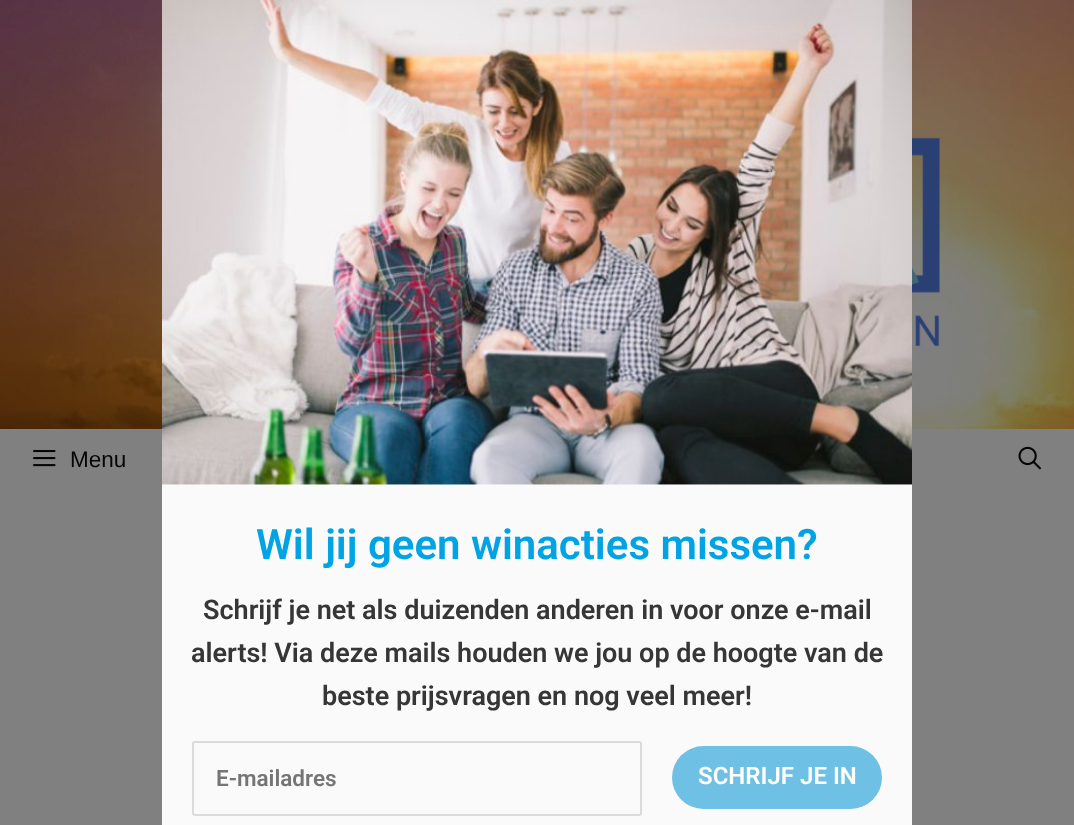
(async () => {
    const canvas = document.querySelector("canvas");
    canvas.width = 1074;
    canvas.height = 825;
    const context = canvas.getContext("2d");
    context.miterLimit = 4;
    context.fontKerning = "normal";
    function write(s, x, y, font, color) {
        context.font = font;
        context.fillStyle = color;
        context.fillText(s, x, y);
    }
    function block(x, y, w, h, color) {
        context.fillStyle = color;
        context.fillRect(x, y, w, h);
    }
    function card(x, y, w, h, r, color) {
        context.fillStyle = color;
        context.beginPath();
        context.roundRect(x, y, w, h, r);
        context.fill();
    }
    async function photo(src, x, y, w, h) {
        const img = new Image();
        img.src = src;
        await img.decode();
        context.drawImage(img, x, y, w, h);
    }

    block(0, 0, 1074, 825, "rgb(128, 128, 128)");
    await photo("media/1.png", 0, 0, 1074, 429);
    await photo("media/2.png", 33, 450, 23, 17);
    write("Menu", 70, 467, "22.5px Liberation Sans", "rgb(5, 5, 5)");
    await photo("media/3.png", 1018, 446, 23, 24);
    block(162, 484, 750, 341, "rgb(250, 250, 250)");
    await photo("media/4.png", 162, 0, 750, 485);
    write("Wil jij geen winacties missen?", 256, 559, "600 42px Roboto", "rgb(0, 164, 228)");
    write("Schrijf je net als duizenden anderen in voor onze e-mail", 203, 619, "600 27px Roboto", "rgb(54, 54, 54)");
    write("alerts! Via deze mails houden we jou op de hoogte van de", 191, 662, "600 27px Roboto", "rgb(54, 54, 54)");
    write("beste prijsvragen en nog veel meer!", 322, 705, "600 27px Roboto", "rgb(54, 54, 54)");
    context.beginPath();
    context.roundRect(193, 742, 448, 73, 2);
    context.strokeStyle = "rgb(219, 219, 219)";
    context.lineWidth = 2;
    context.stroke();
    write("E-mailadres", 216, 786, "600 22.5px Roboto", "rgb(117, 117, 117)");
    card(672, 746, 210, 63, 31.5, "rgb(110, 192, 229)");
    write("SCHRIJF JE IN", 698, 784, "600 24px Roboto", "rgb(255, 255, 255)");
})();
